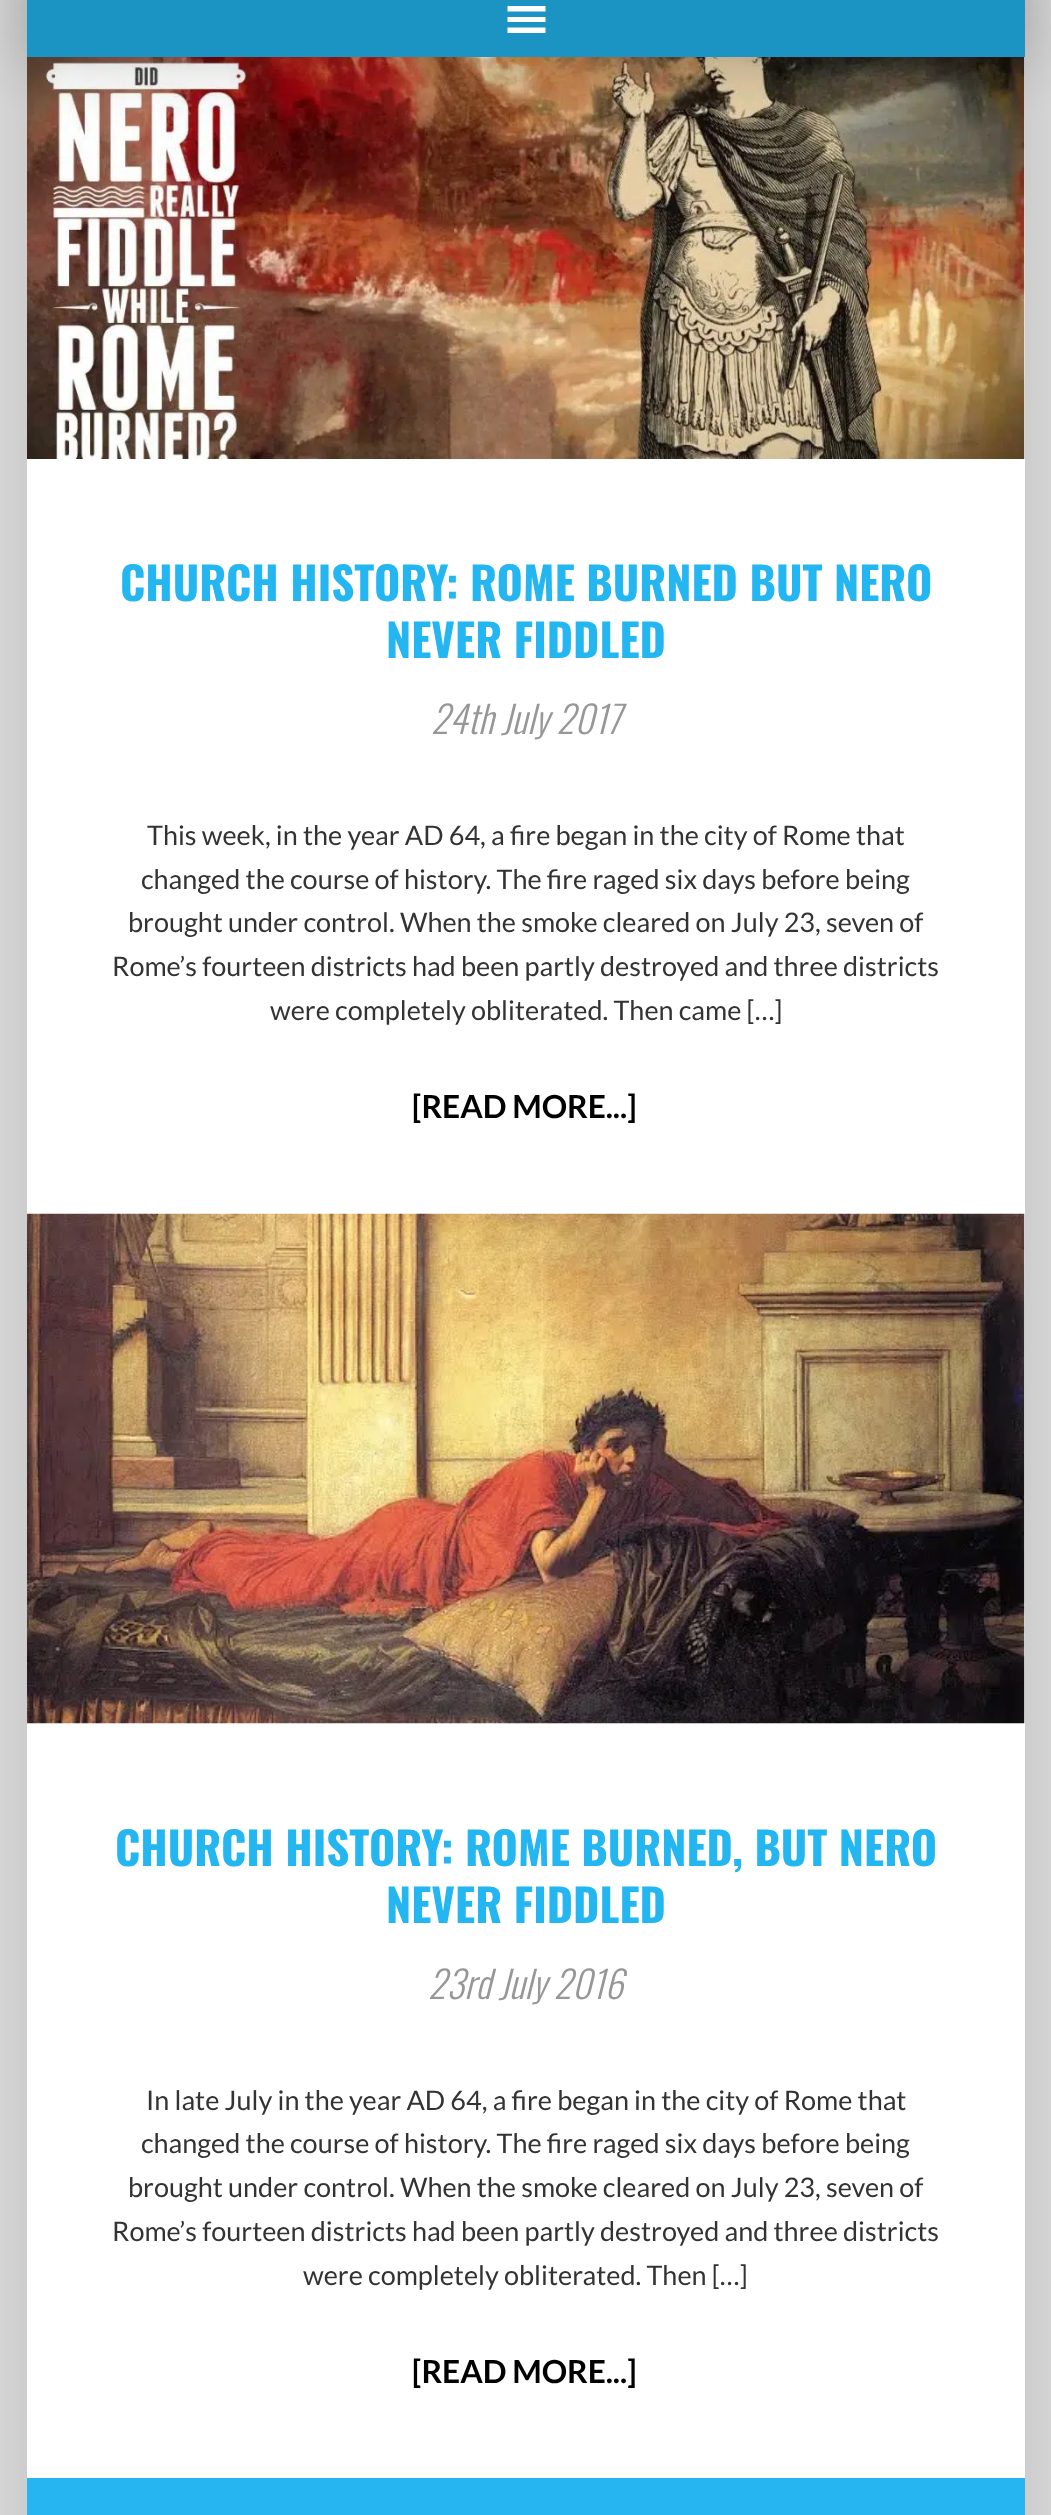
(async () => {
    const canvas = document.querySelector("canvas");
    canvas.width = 1051;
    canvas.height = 2515;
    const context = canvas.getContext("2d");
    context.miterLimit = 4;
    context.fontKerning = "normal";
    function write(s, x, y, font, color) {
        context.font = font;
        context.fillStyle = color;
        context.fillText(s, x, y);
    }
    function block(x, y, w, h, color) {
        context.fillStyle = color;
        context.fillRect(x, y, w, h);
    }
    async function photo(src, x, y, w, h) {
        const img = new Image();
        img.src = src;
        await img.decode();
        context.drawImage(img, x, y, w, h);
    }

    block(0, 0, 1051, 2515, "rgb(246, 246, 246)");
    context.fillStyle = "rgba(0, 0, 0, 0.33)";
    context.filter = "blur(124px)";
    context.beginPath();
    context.rect(27, -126, 998, 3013);
    context.fill();
    context.filter = "none";
    block(27, 57, 998, 2421, "rgb(255, 255, 255)");
    await photo("media/1.png", 27, 57, 998, 402);
    context.fillStyle = "rgba(0, 0, 0, 0.17)";
    context.filter = "blur(28.5px)";
    context.beginPath();
    context.rect(12, -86, 1028, 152);
    context.fill();
    context.filter = "none";
    block(27, 0, 998, 57, "rgb(27, 148, 195)");
    context.fillStyle = "rgb(255, 255, 255)";
    context.beginPath();
    context.moveTo(507.5, 33);
    context.lineTo(545.5, 33);
    context.lineTo(545.5, 27.5);
    context.lineTo(507.5, 27.5);
    context.closePath();
    context.moveTo(507.5, 6);
    context.lineTo(507.5, 11.5);
    context.lineTo(545.5, 11.5);
    context.lineTo(545.5, 6);
    context.closePath();
    context.moveTo(507.5, 22);
    context.lineTo(545.5, 22);
    context.lineTo(545.5, 17);
    context.lineTo(507.5, 17);
    context.closePath();
    context.fill();
    write("CHURCH HISTORY: ROME BURNED BUT NERO", 120, 601, "bold 45px Oswald", "rgb(36, 182, 240)");
    write("NEVER FIDDLED", 386, 658, "bold 45px Oswald", "rgb(36, 182, 240)");
    write("24th July 2017", 431, 734, "italic 300 37.5px Oswald", "rgb(151, 151, 151)");
    write("This week, in the year AD 64, a fire began in the city of Rome that", 147, 845, "27px Lato", "rgb(51, 51, 51)");
    write("changed the course of history. The fire raged six days before being", 141, 889, "27px Lato", "rgb(51, 51, 51)");
    write("brought under control. When the smoke cleared on July 23, seven of", 128, 932, "27px Lato", "rgb(51, 51, 51)");
    write("Rome’s fourteen districts had been partly destroyed and three districts", 112, 976, "27px Lato", "rgb(51, 51, 51)");
    write("were completely obliterated. Then came […]", 270, 1020, "27px Lato", "rgb(51, 51, 51)");
    context.letterSpacing = "-0.1px";
    write("[READ MORE...]", 412, 1118, "bold 31.75px Lato", "rgb(0, 0, 0)");
    await photo("media/2.png", 27, 1213, 998, 511);
    context.letterSpacing = "0px";
    write("CHURCH HISTORY: ROME BURNED, BUT NERO", 115, 1866, "bold 45px Oswald", "rgb(36, 182, 240)");
    write("NEVER FIDDLED", 386, 1923, "bold 45px Oswald", "rgb(36, 182, 240)");
    write("23rd July 2016", 428, 1999, "italic 300 37.5px Oswald", "rgb(151, 151, 151)");
    write("In late July in the year AD 64, a fire began in the city of Rome that", 146, 2110, "27px Lato", "rgb(51, 51, 51)");
    write("changed the course of history. The fire raged six days before being", 141, 2153, "27px Lato", "rgb(51, 51, 51)");
    write("brought under control. When the smoke cleared on July 23, seven of", 128, 2197, "27px Lato", "rgb(51, 51, 51)");
    write("Rome’s fourteen districts had been partly destroyed and three districts", 112, 2241, "27px Lato", "rgb(51, 51, 51)");
    write("were completely obliterated. Then […]", 303, 2285, "27px Lato", "rgb(51, 51, 51)");
    context.letterSpacing = "-0.1px";
    write("[READ MORE...]", 412, 2383, "bold 31.75px Lato", "rgb(0, 0, 0)");
    block(27, 2478, 998, 37, "rgb(38, 181, 240)");
})();
